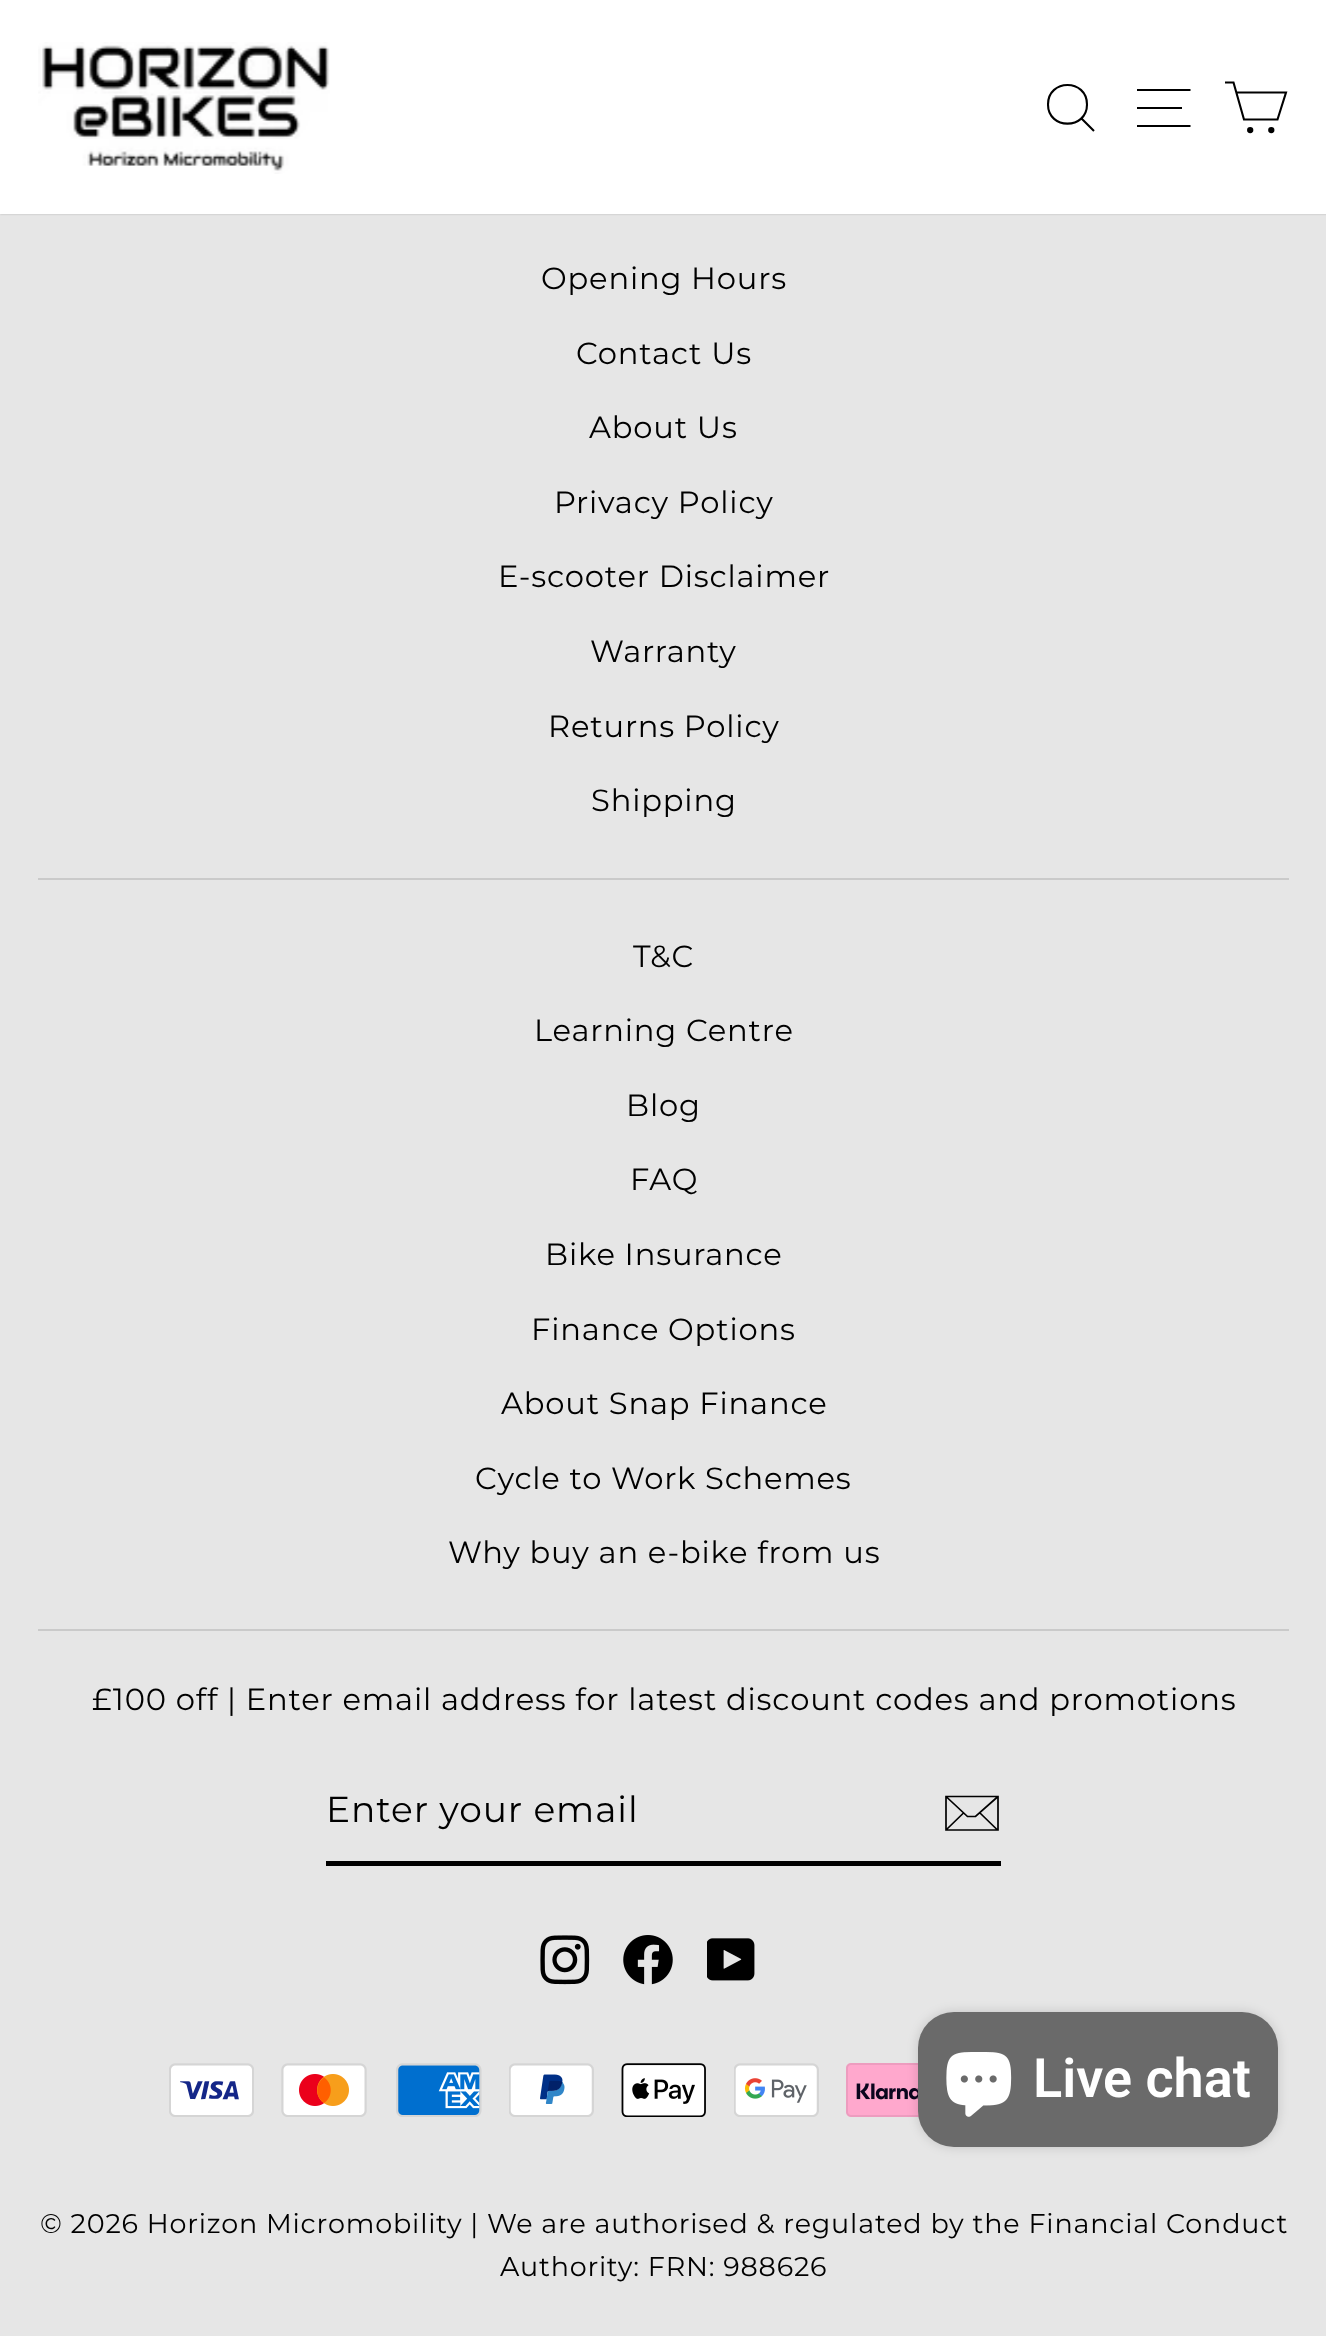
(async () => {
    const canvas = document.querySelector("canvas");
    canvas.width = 1326;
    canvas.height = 2336;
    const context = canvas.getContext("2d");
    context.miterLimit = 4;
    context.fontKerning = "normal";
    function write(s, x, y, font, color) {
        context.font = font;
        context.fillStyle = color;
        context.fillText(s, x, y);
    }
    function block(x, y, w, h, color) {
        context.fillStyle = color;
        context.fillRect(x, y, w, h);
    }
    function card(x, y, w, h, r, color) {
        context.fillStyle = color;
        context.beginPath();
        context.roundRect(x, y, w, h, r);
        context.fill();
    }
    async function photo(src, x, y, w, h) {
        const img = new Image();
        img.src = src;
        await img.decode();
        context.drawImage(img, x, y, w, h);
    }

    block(0, 0, 1326, 2336, "rgb(230, 230, 230)");
    context.fillStyle = "rgba(0, 0, 0, 0.2)";
    context.filter = "blur(1px)";
    context.beginPath();
    context.rect(0, 0, 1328, 214);
    context.fill();
    context.filter = "none";
    block(0, 0, 1326, 214, "rgb(255, 255, 255)");
    await photo("media/1.png", 38, 42, 292, 132);
    context.beginPath();
    context.moveTo(1087, 104.5);
    context.bezierCurveTo(1087, 130, 1048, 130, 1048, 104.5);
    context.bezierCurveTo(1048, 78.5, 1087, 78.5, 1087, 104.5);
    context.closePath();
    context.moveTo(1094, 131);
    context.lineTo(1081.5, 118.5);
    context.strokeStyle = "rgb(0, 0, 0)";
    context.lineWidth = 2.1;
    context.stroke();
    context.beginPath();
    context.moveTo(1137, 90);
    context.lineTo(1190.5, 90);
    context.moveTo(1137, 108);
    context.lineTo(1182, 108);
    context.moveTo(1137, 126);
    context.lineTo(1190.5, 126);
    context.stroke();
    context.beginPath();
    context.moveTo(1236.5, 92.5);
    context.lineTo(1286, 92.5);
    context.lineTo(1277.5, 119.5);
    context.lineTo(1244, 119.5);
    context.lineTo(1233.5, 82.5);
    context.lineTo(1225, 82.5);
    context.stroke();
    context.fillStyle = "rgb(0, 0, 0)";
    context.beginPath();
    context.arc(1250.2, 130.1, 2.1, 0, Math.PI * 2);
    context.fill();
    context.stroke();
    context.beginPath();
    context.arc(1271.3, 130.1, 2.1, 0, Math.PI * 2);
    context.fill();
    context.stroke();
    context.letterSpacing = "0.83px";
    write("Opening Hours", 541, 289, "30.6px Montserrat", "rgb(0, 0, 0)");
    write("Contact Us", 576, 364, "30.6px Montserrat", "rgb(0, 0, 0)");
    write("About Us", 589, 438, "30.6px Montserrat", "rgb(0, 0, 0)");
    write("Privacy Policy", 554, 513, "30.6px Montserrat", "rgb(0, 0, 0)");
    write("E-scooter Disclaimer", 498, 587, "30.6px Montserrat", "rgb(0, 0, 0)");
    write("Warranty", 590, 662, "30.6px Montserrat", "rgb(0, 0, 0)");
    write("Returns Policy", 548, 737, "30.6px Montserrat", "rgb(0, 0, 0)");
    write("Shipping", 591, 811, "30.6px Montserrat", "rgb(0, 0, 0)");
    block(38, 878, 1251, 2, "rgb(202, 202, 202)");
    write("T&C", 633, 967, "30.6px Montserrat", "rgb(0, 0, 0)");
    write("Learning Centre", 534, 1041, "30.6px Montserrat", "rgb(0, 0, 0)");
    write("Blog", 626, 1116, "30.6px Montserrat", "rgb(0, 0, 0)");
    write("FAQ", 630, 1190, "30.6px Montserrat", "rgb(0, 0, 0)");
    write("Bike Insurance", 545, 1265, "30.6px Montserrat", "rgb(0, 0, 0)");
    write("Finance Options", 531, 1340, "30.6px Montserrat", "rgb(0, 0, 0)");
    write("About Snap Finance", 501, 1414, "30.6px Montserrat", "rgb(0, 0, 0)");
    write("Cycle to Work Schemes", 475, 1489, "30.6px Montserrat", "rgb(0, 0, 0)");
    write("Why buy an e-bike from us", 448, 1563, "30.6px Montserrat", "rgb(0, 0, 0)");
    block(38, 1629, 1251, 2, "rgb(202, 202, 202)");
    write("£100 off | Enter email address for latest discount codes and promotions", 92, 1710, "30.6px Montserrat", "rgb(0, 0, 0)");
    block(326, 1861, 675, 5, "rgb(0, 0, 0)");
    context.letterSpacing = "0.9px";
    write("Enter your email", 326, 1822, "36px Montserrat", "rgb(0, 0, 0)");
    context.beginPath();
    context.moveTo(998, 1830);
    context.lineTo(946, 1830);
    context.lineTo(946, 1796.5);
    context.lineTo(998, 1796.5);
    context.closePath();
    context.moveTo(946, 1796.5);
    context.lineTo(967.5, 1816.5);
    context.lineTo(975.5, 1816.5);
    context.lineTo(998, 1796.5);
    context.moveTo(963.5, 1813);
    context.lineTo(946.5, 1829.5);
    context.moveTo(997.5, 1830);
    context.lineTo(980, 1813);
    context.lineWidth = 1.7;
    context.stroke();
    await photo("media/2.png", 540, 1935, 50, 50);
    await photo("media/3.png", 623, 1935, 50, 50);
    await photo("media/4.png", 707, 1938, 48, 43);
    await photo("media/5.png", 169, 2063, 85, 54);
    await photo("media/6.png", 281, 2063, 86, 54);
    await photo("media/7.png", 396, 2063, 86, 54);
    await photo("media/8.png", 509, 2063, 85, 54);
    await photo("media/9.png", 621, 2063, 85, 54);
    await photo("media/10.png", 734, 2063, 85, 54);
    await photo("media/11.png", 846, 2063, 73, 54);
    context.letterSpacing = "0.83px";
    write("© 2026 Horizon Micromobility | We are authorised & regulated by the Financial Conduct", 40, 2233, "27px Montserrat", "rgb(0, 0, 0)");
    write("Authority: FRN: 988626", 500, 2276, "27px Montserrat", "rgb(0, 0, 0)");
    context.fillStyle = "rgba(0, 0, 0, 0.15)";
    context.filter = "blur(5.5px)";
    context.beginPath();
    context.roundRect(918, 2012, 360, 135, 36);
    context.fill();
    context.filter = "none";
    card(918, 2012, 360, 135, 36, "rgb(106, 106, 106)");
    await photo("media/12.png", 946, 2052, 66, 65);
    context.letterSpacing = "0px";
    write("Live chat", 1033, 2097, "600 54px Roboto", "rgb(255, 255, 255)");
})();
